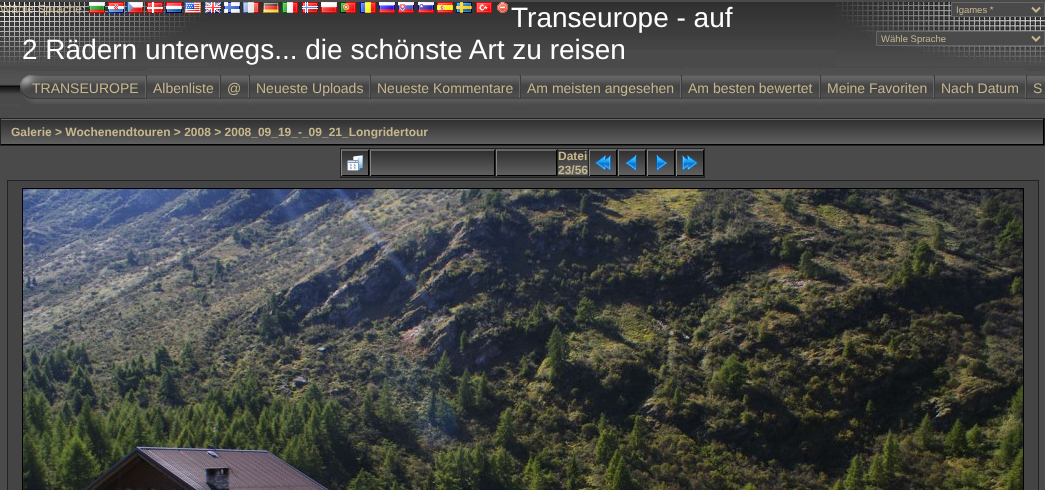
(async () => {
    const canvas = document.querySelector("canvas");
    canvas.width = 1045;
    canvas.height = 490;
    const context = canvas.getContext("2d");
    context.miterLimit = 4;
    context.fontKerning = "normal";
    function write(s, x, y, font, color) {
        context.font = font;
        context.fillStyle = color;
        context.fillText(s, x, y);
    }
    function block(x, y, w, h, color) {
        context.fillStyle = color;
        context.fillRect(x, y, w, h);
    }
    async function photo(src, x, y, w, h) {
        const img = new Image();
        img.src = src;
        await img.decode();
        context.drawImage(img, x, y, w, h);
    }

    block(0, 0, 1045, 490, "rgb(74, 74, 74)");
    await photo("media/24.png", 0, 2, 208, 64);
    write("Wähle Sprache:", 0, 13, "12px Liberation Sans", "rgb(198, 183, 142)");
    await photo("media/1.png", 89, 2, 16, 11);
    await photo("media/2.png", 108, 2, 16, 11);
    await photo("media/3.png", 127, 2, 16, 11);
    await photo("media/4.png", 147, 2, 16, 11);
    await photo("media/5.png", 166, 2, 16, 11);
    await photo("media/6.png", 185, 2, 16, 11);
    await photo("media/23.png", 208, 2, 628, 48);
    await photo("media/7.png", 205, 2, 16, 11);
    await photo("media/8.png", 224, 2, 16, 11);
    await photo("media/9.png", 243, 2, 16, 11);
    await photo("media/10.png", 263, 2, 16, 11);
    await photo("media/11.png", 282, 2, 16, 11);
    await photo("media/12.png", 302, 2, 16, 11);
    await photo("media/13.png", 321, 2, 16, 11);
    await photo("media/14.png", 340, 2, 16, 11);
    await photo("media/15.png", 360, 2, 16, 11);
    await photo("media/16.png", 379, 2, 16, 11);
    await photo("media/17.png", 398, 2, 16, 11);
    await photo("media/18.png", 418, 2, 16, 11);
    await photo("media/19.png", 437, 2, 16, 11);
    await photo("media/20.png", 456, 2, 16, 11);
    await photo("media/21.png", 476, 2, 16, 11);
    await photo("media/22.png", 497, 2, 11, 11);
    await photo("media/25.png", 836, 2, 209, 64);
    write("Transeurope - auf", 511, 27, "28px Liberation Sans", "rgb(255, 255, 255)");
    write("2 Rädern unterwegs... die schönste Art zu reisen", 22, 59, "28px Liberation Sans", "rgb(255, 255, 255)");
    context.fillStyle = "rgb(74, 74, 74)";
    context.beginPath();
    context.rect(951.5, 2.5, 93, 14);
    context.fill();
    context.strokeStyle = "rgb(102, 102, 102)";
    context.stroke();
    context.beginPath();
    context.moveTo(1032, 7.5);
    context.lineTo(1036, 11.5);
    context.lineTo(1040, 7.5);
    context.strokeStyle = "rgb(198, 183, 142)";
    context.lineWidth = 2;
    context.stroke();
    write("Igames *", 956, 13, "9.5px Liberation Sans", "rgb(198, 183, 142)");
    context.fillStyle = "rgb(74, 74, 74)";
    context.beginPath();
    context.rect(876.5, 31.5, 168, 14);
    context.fill();
    context.strokeStyle = "rgb(102, 102, 102)";
    context.lineWidth = 1;
    context.stroke();
    context.beginPath();
    context.moveTo(1032, 36.5);
    context.lineTo(1036, 40.5);
    context.lineTo(1040, 36.5);
    context.strokeStyle = "rgb(198, 183, 142)";
    context.lineWidth = 2;
    context.stroke();
    write("Wähle Sprache", 881, 42, "9.5px Liberation Sans", "rgb(198, 183, 142)");
    await photo("media/26.png", 0, 70, 1027, 36);
    block(20, 70, 125, 36, "rgb(74, 74, 74)");
    await photo("media/27.png", 20, 71, 125, 33);
    write("TRANSEUROPE", 32, 93, "14px Liberation Sans", "rgb(198, 183, 142)");
    await photo("media/28.png", 145, 75, 2, 29);
    block(147, 105, 72, 1, "rgb(74, 74, 74)");
    await photo("media/29.png", 147, 68, 72, 36);
    write("Albenliste", 153, 93, "14px Liberation Sans", "rgb(198, 183, 142)");
    await photo("media/28.png", 219, 75, 2, 29);
    block(221, 105, 27, 1, "rgb(74, 74, 74)");
    await photo("media/30.png", 221, 68, 27, 36);
    write("@", 227, 93, "14px Liberation Sans", "rgb(198, 183, 142)");
    await photo("media/28.png", 248, 75, 2, 29);
    block(250, 105, 119, 1, "rgb(74, 74, 74)");
    await photo("media/31.png", 250, 68, 119, 36);
    write("Neueste Uploads", 256, 93, "14px Liberation Sans", "rgb(198, 183, 142)");
    await photo("media/28.png", 369, 75, 2, 29);
    block(371, 105, 148, 1, "rgb(74, 74, 74)");
    await photo("media/32.png", 371, 68, 148, 36);
    write("Neueste Kommentare", 377, 93, "14px Liberation Sans", "rgb(198, 183, 142)");
    await photo("media/28.png", 519, 75, 2, 29);
    block(521, 105, 159, 1, "rgb(74, 74, 74)");
    await photo("media/33.png", 521, 68, 159, 36);
    write("Am meisten angesehen", 527, 93, "14px Liberation Sans", "rgb(198, 183, 142)");
    await photo("media/28.png", 680, 75, 2, 29);
    block(682, 105, 137, 1, "rgb(74, 74, 74)");
    await photo("media/34.png", 682, 68, 137, 36);
    write("Am besten bewertet", 688, 93, "14px Liberation Sans", "rgb(198, 183, 142)");
    await photo("media/28.png", 819, 75, 2, 29);
    block(821, 105, 112, 1, "rgb(74, 74, 74)");
    await photo("media/35.png", 821, 68, 112, 36);
    write("Meine Favoriten", 827, 93, "14px Liberation Sans", "rgb(198, 183, 142)");
    await photo("media/28.png", 933, 75, 2, 29);
    block(935, 105, 90, 1, "rgb(74, 74, 74)");
    await photo("media/36.png", 935, 68, 90, 36);
    write("Nach Datum", 941, 93, "14px Liberation Sans", "rgb(198, 183, 142)");
    await photo("media/28.png", 1025, 75, 2, 29);
    await photo("media/37.png", 1027, 71, 18, 33);
    write("S", 1033, 93, "14px Liberation Sans", "rgb(198, 183, 142)");
    block(0, 118, 1045, 28, "rgb(34, 34, 34)");
    await photo("media/38.png", 1, 119, 1042, 25);
    block(1043, 119, 1, 26, "rgb(0, 0, 0)");
    block(1, 144, 1043, 1, "rgb(0, 0, 0)");
    write("Galerie > Wochenendtouren > 2008 > 2008_09_19_-_09_21_Longridertour", 11, 136, "bold 12px Liberation Sans", "rgb(198, 183, 142)");
    block(340, 148, 365, 30, "rgb(34, 34, 34)");
    await photo("media/39.png", 341, 149, 28, 28);
    await photo("media/40.png", 342, 150, 26, 25);
    block(368, 150, 1, 26, "rgb(0, 0, 0)");
    block(341, 175, 28, 1, "rgb(0, 0, 0)");
    block(341, 150, 1, 26, "rgb(131, 131, 131)");
    await photo("media/41.png", 347, 155, 16, 16);
    await photo("media/42.png", 370, 149, 125, 28);
    await photo("media/43.png", 371, 150, 123, 25);
    block(494, 150, 1, 26, "rgb(0, 0, 0)");
    block(370, 175, 125, 1, "rgb(0, 0, 0)");
    block(370, 150, 1, 26, "rgb(131, 131, 131)");
    await photo("media/44.png", 496, 149, 61, 28);
    await photo("media/45.png", 497, 150, 59, 25);
    block(556, 150, 1, 26, "rgb(0, 0, 0)");
    block(496, 175, 61, 1, "rgb(0, 0, 0)");
    block(496, 150, 1, 26, "rgb(131, 131, 131)");
    await photo("media/46.png", 558, 149, 30, 28);
    write("Datei", 558, 160, "bold 12px Liberation Sans", "rgb(198, 183, 142)");
    write("23/56", 558, 174, "bold 12px Liberation Sans", "rgb(198, 183, 142)");
    await photo("media/39.png", 589, 149, 28, 28);
    await photo("media/40.png", 590, 150, 26, 25);
    block(616, 150, 1, 26, "rgb(0, 0, 0)");
    block(589, 175, 28, 1, "rgb(0, 0, 0)");
    block(589, 150, 1, 26, "rgb(131, 131, 131)");
    await photo("media/47.png", 595, 155, 16, 16);
    await photo("media/39.png", 618, 149, 28, 28);
    await photo("media/40.png", 619, 150, 26, 25);
    block(645, 150, 1, 26, "rgb(0, 0, 0)");
    block(618, 175, 28, 1, "rgb(0, 0, 0)");
    block(618, 150, 1, 26, "rgb(131, 131, 131)");
    await photo("media/48.png", 625, 155, 12, 16);
    await photo("media/39.png", 647, 149, 28, 28);
    await photo("media/40.png", 648, 150, 26, 25);
    block(674, 150, 1, 26, "rgb(0, 0, 0)");
    block(647, 175, 28, 1, "rgb(0, 0, 0)");
    block(647, 150, 1, 26, "rgb(131, 131, 131)");
    await photo("media/49.png", 656, 155, 12, 16);
    await photo("media/39.png", 676, 149, 28, 28);
    await photo("media/40.png", 677, 150, 26, 25);
    block(703, 150, 1, 26, "rgb(0, 0, 0)");
    block(676, 175, 28, 1, "rgb(0, 0, 0)");
    block(676, 150, 1, 26, "rgb(131, 131, 131)");
    await photo("media/50.png", 682, 155, 16, 16);
    block(7, 180, 1032, 310, "rgb(34, 34, 34)");
    block(8, 181, 1030, 309, "rgb(69, 68, 68)");
    context.strokeStyle = "rgb(0, 0, 0)";
    context.lineWidth = 1;
    context.strokeRect(22.5, 188.5, 1001, 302);
    await photo("media/51.png", 23, 189, 1000, 301);
})();
